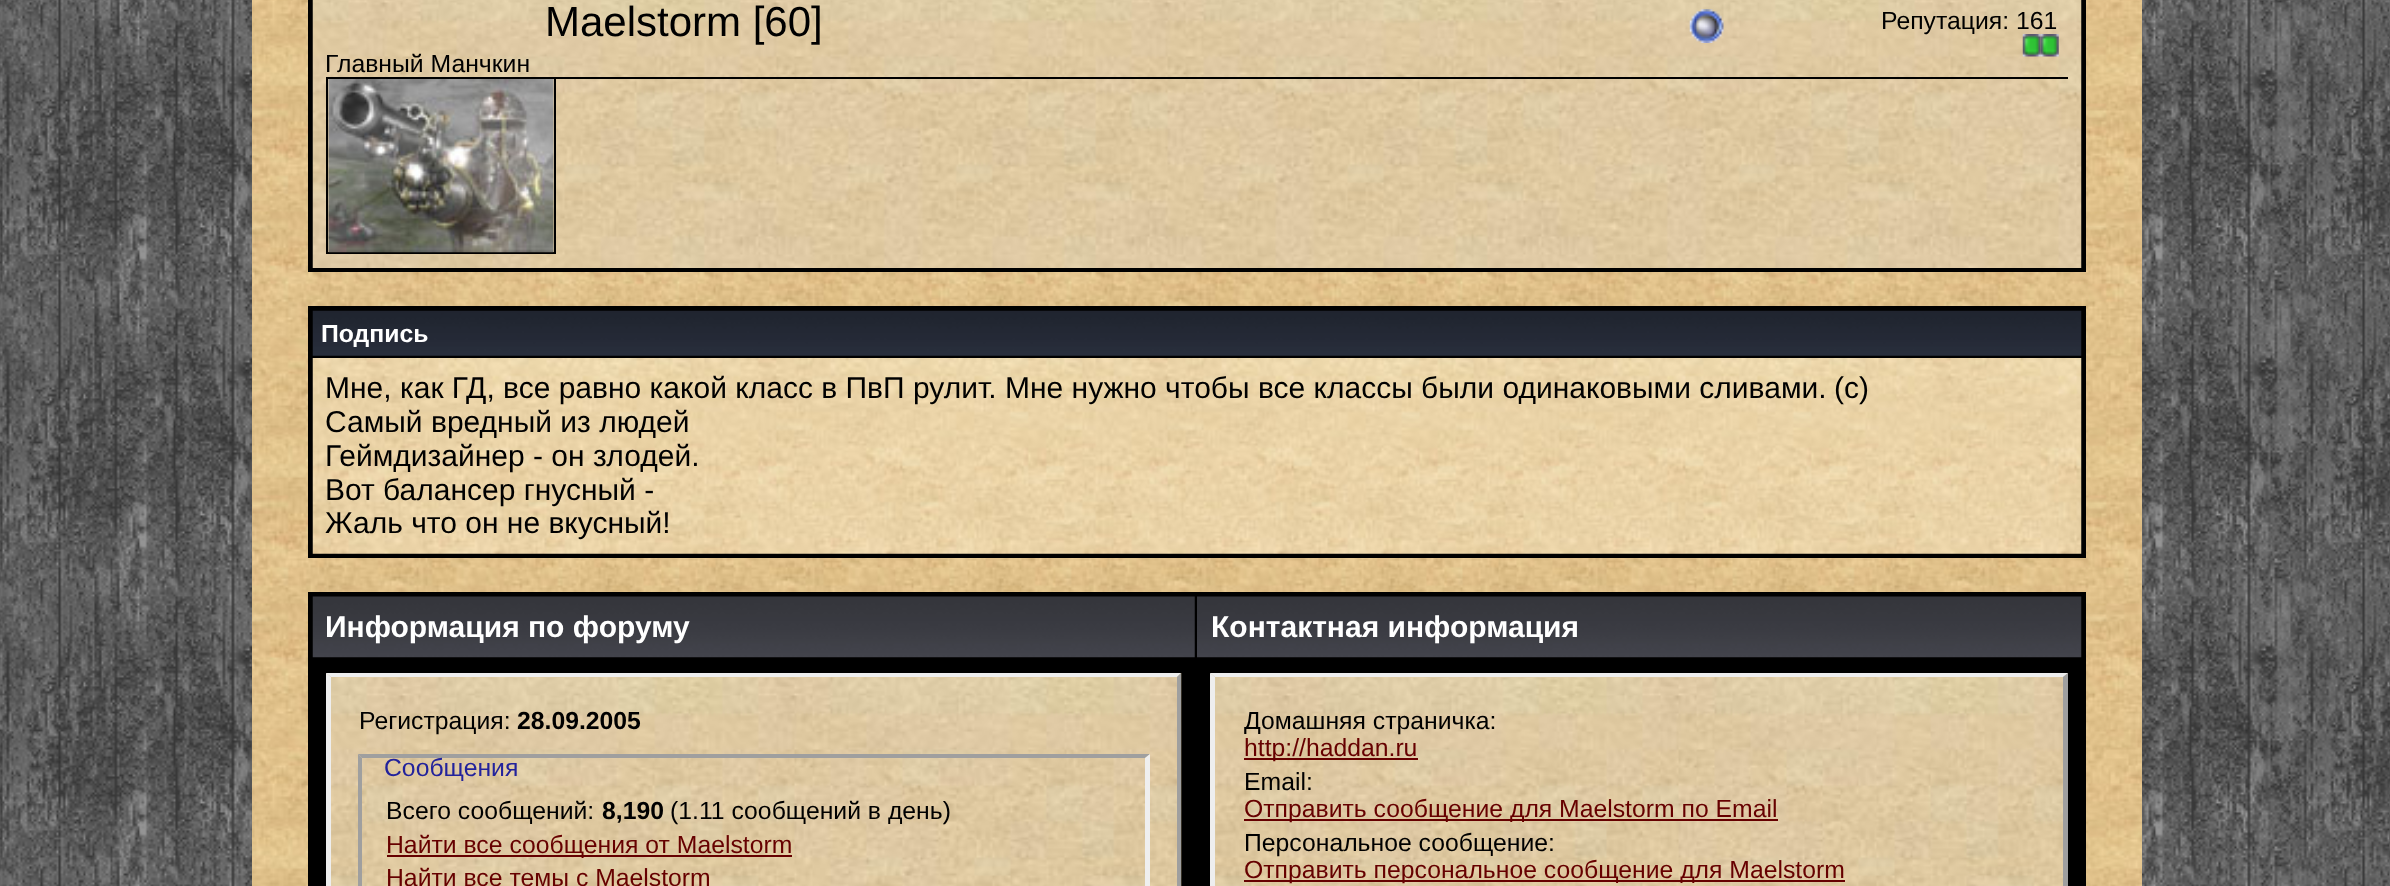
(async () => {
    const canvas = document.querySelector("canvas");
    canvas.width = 2390;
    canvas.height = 886;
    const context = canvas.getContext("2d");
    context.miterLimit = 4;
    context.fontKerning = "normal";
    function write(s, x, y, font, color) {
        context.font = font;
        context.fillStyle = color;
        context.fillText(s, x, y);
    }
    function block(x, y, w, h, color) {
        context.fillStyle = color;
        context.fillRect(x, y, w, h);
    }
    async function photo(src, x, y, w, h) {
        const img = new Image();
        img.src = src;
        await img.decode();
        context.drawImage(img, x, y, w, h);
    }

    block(0, 0, 2390, 886, "rgb(255, 255, 255)");
    await photo("media/1.png", 0, 0, 2390, 886);
    await photo("media/2.png", 252, 0, 1890, 886);
    block(308, 0, 1778, 272, "rgb(0, 0, 0)");
    await photo("media/3.png", 312, 0, 1770, 268);
    block(326, 77, 1742, 2, "rgb(0, 0, 0)");
    write("Maelstorm [60]", 545, 36, "42px Liberation Sans", "rgb(0, 0, 0)");
    await photo("media/4.png", 1689, 9, 35, 34);
    write("Репутация: 161", 1881, 29, "24.75px Liberation Sans", "rgb(0, 0, 0)");
    await photo("media/5.png", 2022, 34, 19, 23);
    await photo("media/6.png", 2040, 34, 19, 23);
    write("Главный Манчкин", 325, 72, "24.75px Liberation Sans", "rgb(0, 0, 0)");
    block(554, 79, 2, 175, "rgb(0, 0, 0)");
    block(326, 252, 230, 2, "rgb(0, 0, 0)");
    block(326, 79, 2, 175, "rgb(0, 0, 0)");
    await photo("media/7.png", 328, 79, 226, 174);
    block(308, 306, 1778, 252, "rgb(0, 0, 0)");
    await photo("media/8.png", 312, 310, 1770, 46);
    write("Подпись", 321, 342, "bold 24.75px Liberation Sans", "rgb(255, 255, 255)");
    await photo("media/9.png", 312, 358, 1770, 196);
    write("Мне, как ГД, все равно какой класс в ПвП рулит. Мне нужно чтобы все классы были одинаковыми сливами.", 325, 398, "30px Liberation Sans", "rgb(0, 0, 0)");
    write("(c)", 1834, 398, "30px Liberation Sans", "rgb(0, 0, 0)");
    write("Самый вредный из людей", 325, 432, "30px Liberation Sans", "rgb(0, 0, 0)");
    write("Геймдизайнер - он злодей.", 325, 466, "30px Liberation Sans", "rgb(0, 0, 0)");
    write("Вот балансер гнусный -", 325, 500, "30px Liberation Sans", "rgb(0, 0, 0)");
    write("Жаль что он не вкусный!", 325, 533, "30px Liberation Sans", "rgb(0, 0, 0)");
    block(308, 592, 1778, 294, "rgb(0, 0, 0)");
    await photo("media/10.png", 312, 596, 883, 62);
    write("Информация по форуму", 325, 637, "bold 30px Liberation Sans", "rgb(255, 255, 255)");
    await photo("media/11.png", 1197, 596, 885, 62);
    write("Контактная информация", 1211, 637, "bold 30px Liberation Sans", "rgb(255, 255, 255)");
    await photo("media/12.png", 326, 673, 856, 213);
    context.fillStyle = "rgb(238, 238, 238)";
    context.beginPath();
    context.moveTo(326, 673);
    context.lineTo(1181, 673);
    context.lineTo(1177, 677);
    context.lineTo(331, 677);
    context.closePath();
    context.fill();
    context.fillStyle = "rgb(159, 159, 159)";
    context.beginPath();
    context.moveTo(1181, 673);
    context.lineTo(1181, 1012);
    context.lineTo(1177, 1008);
    context.lineTo(1177, 677);
    context.closePath();
    context.fill();
    context.fillStyle = "rgb(238, 238, 238)";
    context.beginPath();
    context.moveTo(326, 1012);
    context.lineTo(326, 673);
    context.lineTo(331, 677);
    context.lineTo(331, 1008);
    context.closePath();
    context.fill();
    write("Регистрация:", 359, 729, "24.75px Liberation Sans", "rgb(0, 0, 0)");
    write("28.09.2005", 517, 729, "bold 24.75px Liberation Sans", "rgb(0, 0, 0)");
    context.fillStyle = "rgb(159, 159, 159)";
    context.beginPath();
    context.moveTo(358, 754);
    context.lineTo(1150, 754);
    context.lineTo(1145, 758);
    context.lineTo(362, 758);
    context.closePath();
    context.fill();
    context.fillStyle = "rgb(239, 239, 239)";
    context.beginPath();
    context.moveTo(1150, 754);
    context.lineTo(1150, 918);
    context.lineTo(1145, 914);
    context.lineTo(1145, 758);
    context.closePath();
    context.fill();
    context.fillStyle = "rgb(159, 159, 159)";
    context.beginPath();
    context.moveTo(358, 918);
    context.lineTo(358, 754);
    context.lineTo(362, 758);
    context.lineTo(362, 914);
    context.closePath();
    context.fill();
    write("Сообщения", 384, 776, "24.75px Liberation Sans", "rgb(34, 34, 156)");
    write("Всего сообщений:", 386, 819, "24.75px Liberation Sans", "rgb(0, 0, 0)");
    write("8,190", 602, 819, "bold 24.75px Liberation Sans", "rgb(0, 0, 0)");
    write("(1.11 сообщений в день)", 670, 819, "24.75px Liberation Sans", "rgb(0, 0, 0)");
    block(387, 855, 405, 2, "rgb(102, 0, 0)");
    write("Найти все сообщения от Maelstorm", 386, 853, "24.75px Liberation Sans", "rgb(102, 0, 0)");
    write("Найти все темы с Maelstorm", 386, 886, "24.75px Liberation Sans", "rgb(102, 0, 0)");
    await photo("media/13.png", 1210, 673, 858, 213);
    context.fillStyle = "rgb(238, 238, 238)";
    context.beginPath();
    context.moveTo(1210, 673);
    context.lineTo(2068, 673);
    context.lineTo(2063, 677);
    context.lineTo(1215, 677);
    context.closePath();
    context.fill();
    context.fillStyle = "rgb(159, 159, 159)";
    context.beginPath();
    context.moveTo(2068, 673);
    context.lineTo(2068, 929);
    context.lineTo(2063, 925);
    context.lineTo(2063, 677);
    context.closePath();
    context.fill();
    context.fillStyle = "rgb(238, 238, 238)";
    context.beginPath();
    context.moveTo(1210, 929);
    context.lineTo(1210, 673);
    context.lineTo(1215, 677);
    context.lineTo(1215, 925);
    context.closePath();
    context.fill();
    write("Домашняя страничка:", 1244, 729, "24.75px Liberation Sans", "rgb(0, 0, 0)");
    block(1244, 758, 174, 2, "rgb(102, 0, 0)");
    write("http://haddan.ru", 1244, 756, "24.75px Liberation Sans", "rgb(102, 0, 0)");
    write("Email:", 1244, 790, "24.75px Liberation Sans", "rgb(0, 0, 0)");
    block(1244, 819, 534, 2, "rgb(102, 0, 0)");
    write("Отправить сообщение для Maelstorm по Email", 1244, 817, "24.75px Liberation Sans", "rgb(102, 0, 0)");
    write("Персональное сообщение:", 1244, 851, "24.75px Liberation Sans", "rgb(0, 0, 0)");
    block(1244, 880, 601, 2, "rgb(102, 0, 0)");
    write("Отправить персональное сообщение для Maelstorm", 1244, 878, "24.75px Liberation Sans", "rgb(102, 0, 0)");
})();
